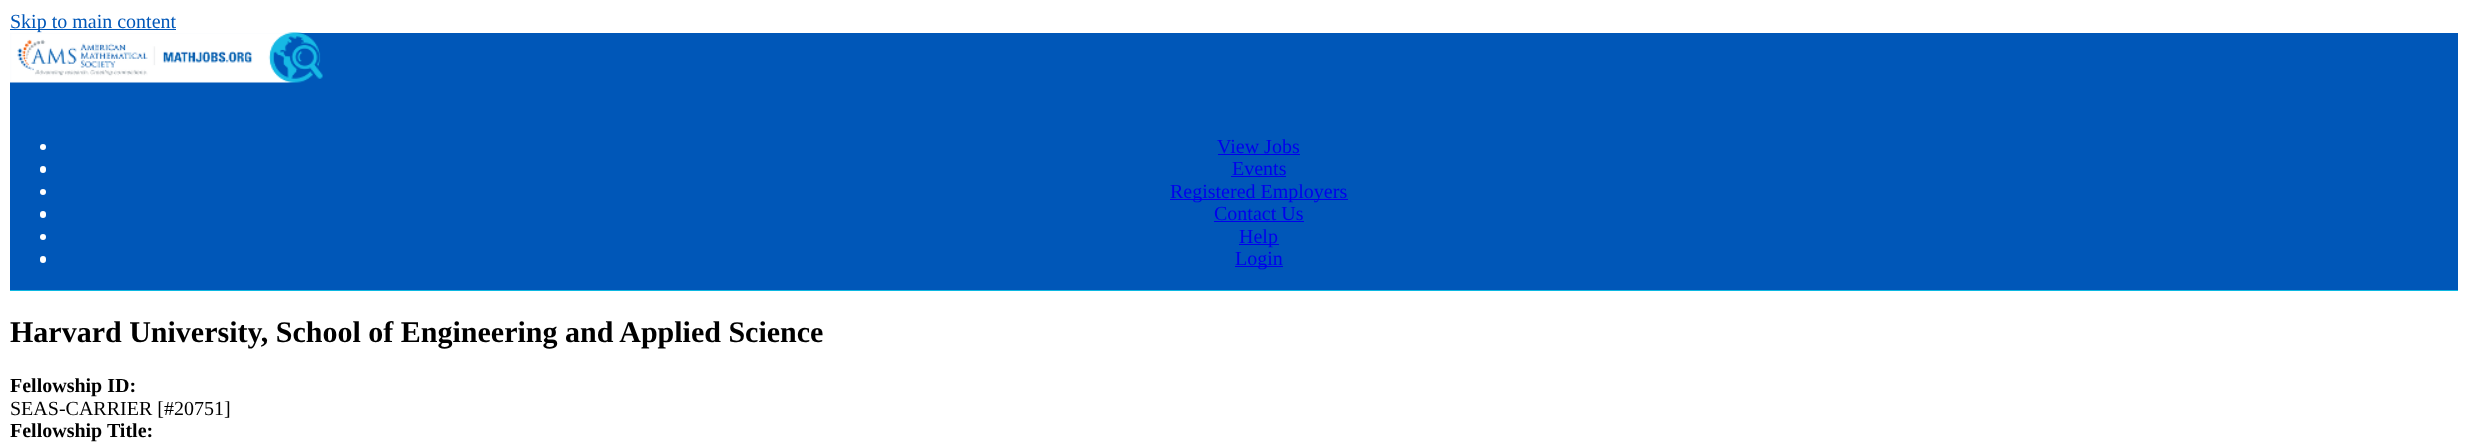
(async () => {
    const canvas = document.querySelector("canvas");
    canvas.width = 2467;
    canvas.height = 446;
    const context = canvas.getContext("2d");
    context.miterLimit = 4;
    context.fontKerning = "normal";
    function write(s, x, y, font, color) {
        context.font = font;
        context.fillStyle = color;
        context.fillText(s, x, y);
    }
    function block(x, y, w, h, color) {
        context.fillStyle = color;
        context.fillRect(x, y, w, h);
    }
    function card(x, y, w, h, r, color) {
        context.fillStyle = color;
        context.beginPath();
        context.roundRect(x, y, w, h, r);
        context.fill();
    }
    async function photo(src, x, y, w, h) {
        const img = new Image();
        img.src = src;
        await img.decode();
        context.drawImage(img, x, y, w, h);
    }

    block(0, 0, 2467, 446, "rgb(255, 255, 255)");
    block(10, 29, 166, 1, "rgb(0, 87, 184)");
    write("Skip to main content", 10, 28, "20px Liberation Serif", "rgb(0, 87, 184)");
    block(10, 33, 2448, 257, "rgb(0, 87, 184)");
    await photo("media/1.png", 10, 32, 313, 51);
    context.fillStyle = "rgb(255, 255, 255)";
    context.beginPath();
    context.arc(43, 147, 3, 0, Math.PI * 2);
    context.fill();
    write("View Jobs", 1217, 153, "20px Liberation Serif", "rgb(0, 0, 238)");
    block(1218, 154, 82, 1, "rgb(0, 0, 238)");
    card(40, 166, 6, 7, 3, "rgb(255, 255, 255)");
    write("Events", 1232, 175, "20px Liberation Serif", "rgb(0, 0, 238)");
    block(1231, 176, 55, 1, "rgb(0, 0, 238)");
    context.fillStyle = "rgb(255, 255, 255)";
    context.beginPath();
    context.arc(43, 192, 3, 0, Math.PI * 2);
    context.fill();
    block(1170, 199, 178, 1, "rgb(0, 0, 238)");
    write("Registered Employers", 1170, 198, "20px Liberation Serif", "rgb(0, 0, 238)");
    card(40, 211, 6, 7, 3, "rgb(255, 255, 255)");
    write("Contact Us", 1214, 220, "20px Liberation Serif", "rgb(0, 0, 238)");
    block(1214, 221, 90, 1, "rgb(0, 0, 238)");
    context.fillStyle = "rgb(255, 255, 255)";
    context.beginPath();
    context.arc(43, 237, 3, 0, Math.PI * 2);
    context.fill();
    block(1239, 244, 40, 1, "rgb(0, 0, 238)");
    write("Help", 1239, 243, "20px Liberation Serif", "rgb(0, 0, 238)");
    card(40, 256, 6, 7, 3, "rgb(255, 255, 255)");
    block(1235, 266, 48, 1, "rgb(0, 0, 238)");
    write("Login", 1235, 265, "20px Liberation Serif", "rgb(0, 0, 238)");
    block(10, 290, 2448, 1, "rgb(12, 183, 225)");
    write("Harvard University, School of Engineering and Applied Science", 10, 342, "bold 30px Liberation Serif", "rgb(0, 0, 0)");
    write("Fellowship ID:", 10, 392, "bold 20px Liberation Serif", "rgb(0, 0, 0)");
    write("SEAS-CARRIER [#20751]", 10, 415, "20px Liberation Serif", "rgb(0, 0, 0)");
    write("Fellowship Title:", 10, 437, "bold 20px Liberation Serif", "rgb(0, 0, 0)");
})();
